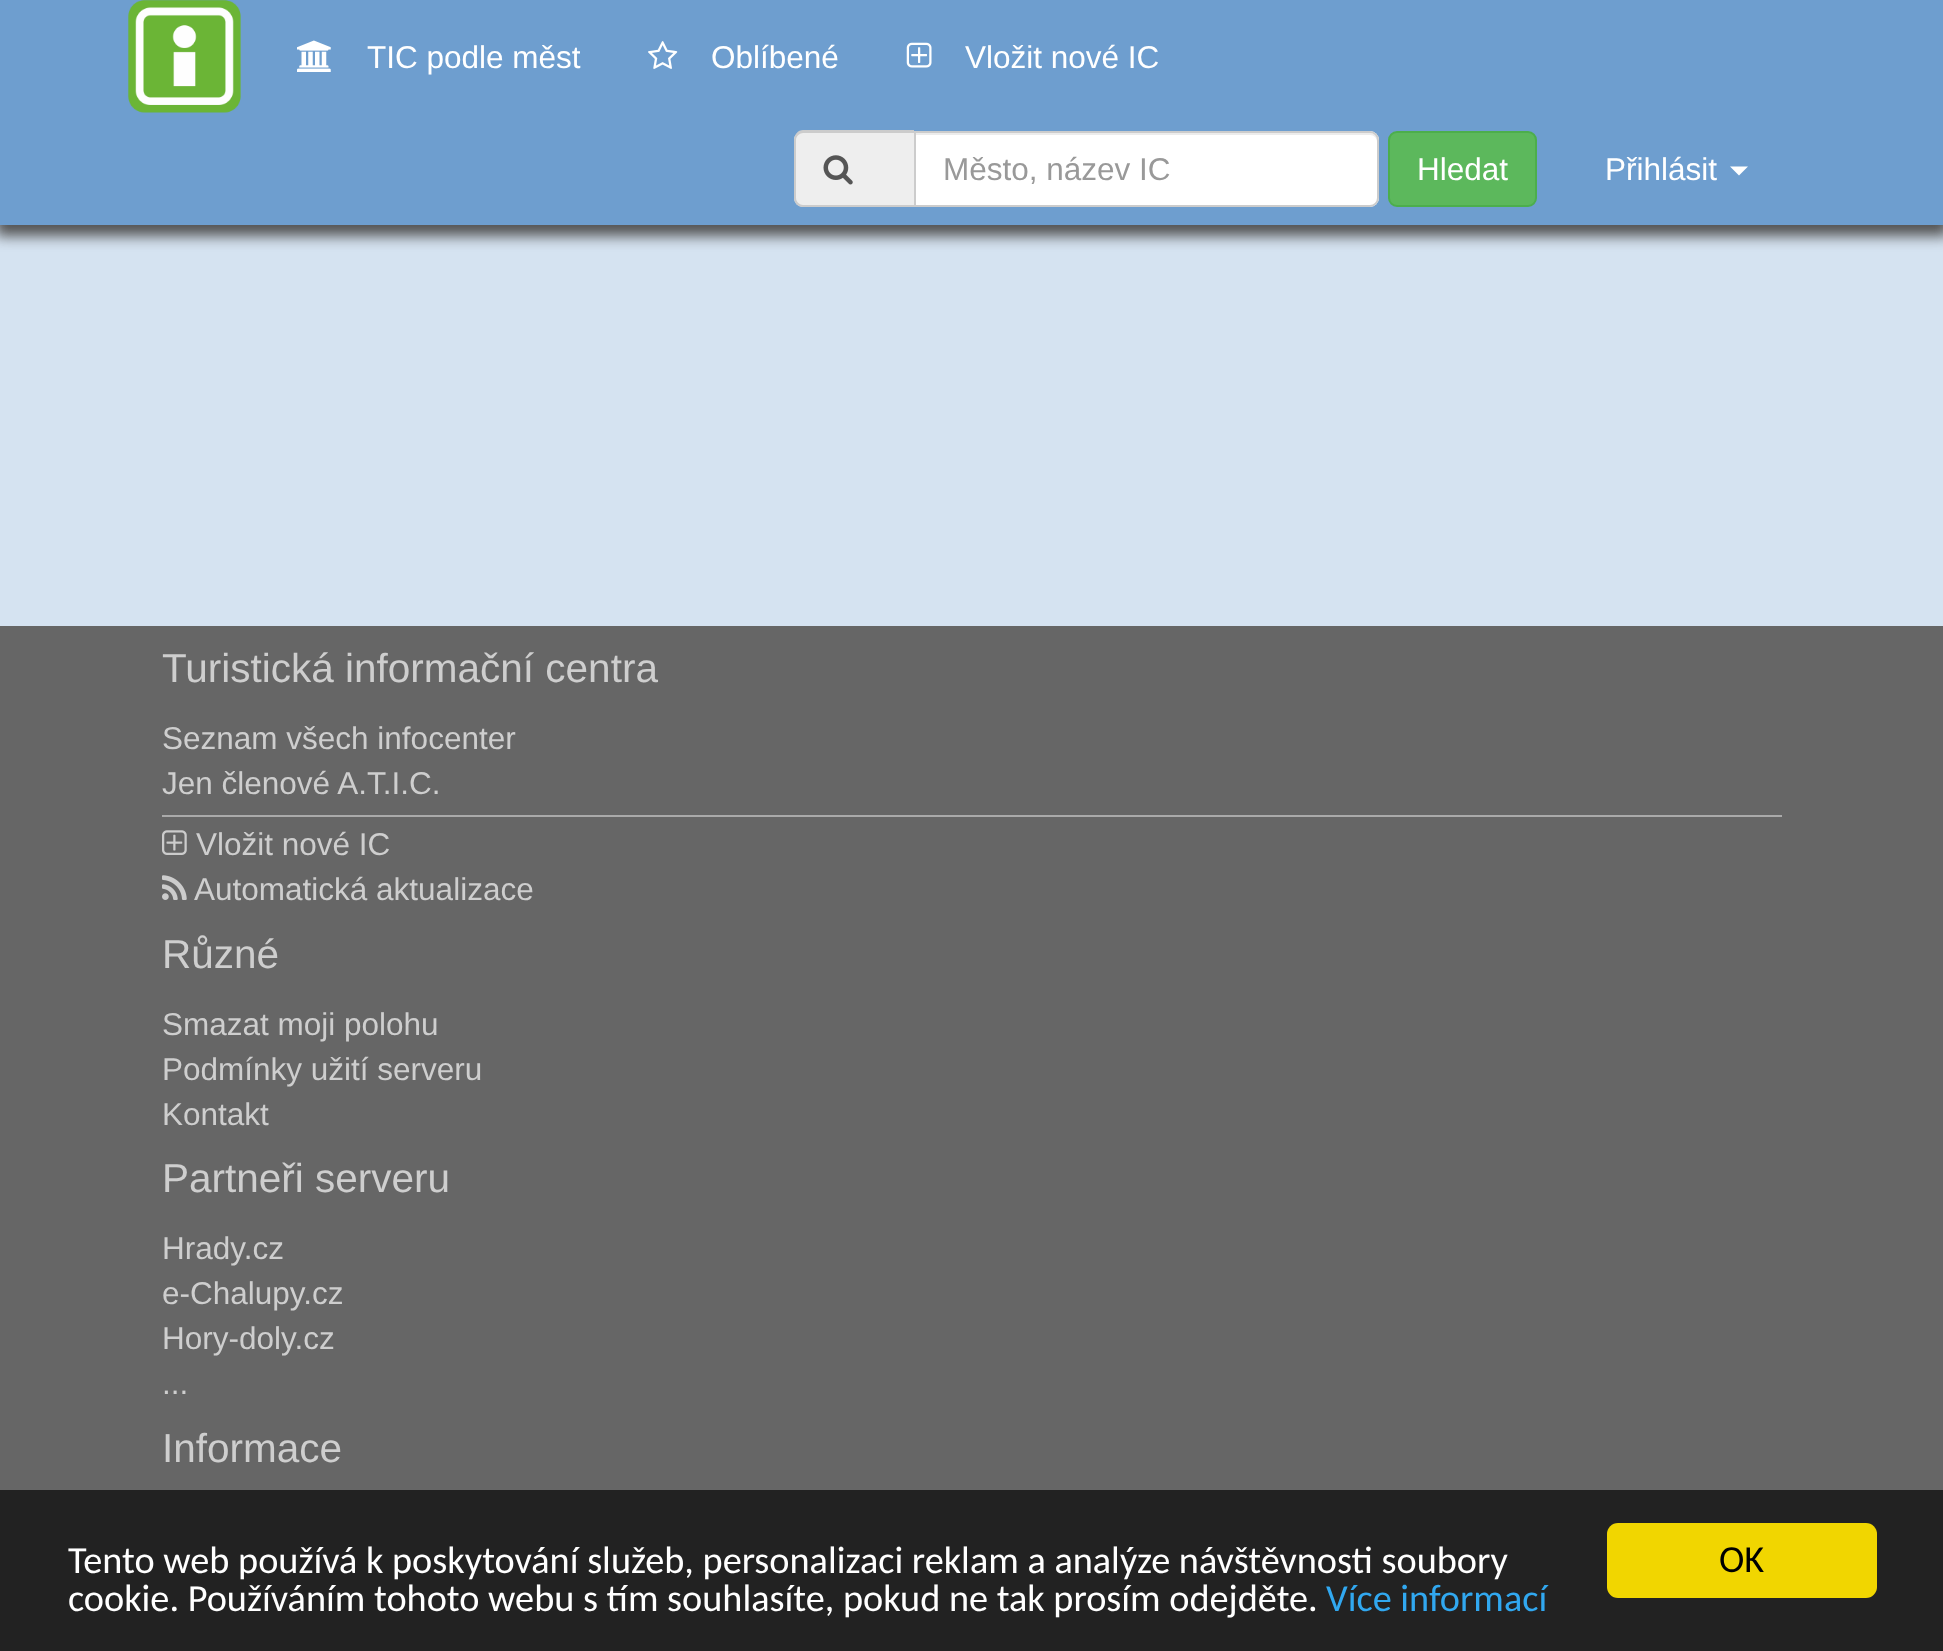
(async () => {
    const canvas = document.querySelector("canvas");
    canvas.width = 1943;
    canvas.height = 1651;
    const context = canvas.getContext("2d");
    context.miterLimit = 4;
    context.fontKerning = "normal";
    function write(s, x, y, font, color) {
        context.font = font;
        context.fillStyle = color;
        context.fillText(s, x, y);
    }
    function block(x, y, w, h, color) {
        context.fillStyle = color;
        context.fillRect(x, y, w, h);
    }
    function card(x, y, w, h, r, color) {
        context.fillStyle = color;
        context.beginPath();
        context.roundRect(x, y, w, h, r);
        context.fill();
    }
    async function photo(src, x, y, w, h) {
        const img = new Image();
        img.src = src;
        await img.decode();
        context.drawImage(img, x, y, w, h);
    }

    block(0, 0, 1943, 1651, "rgb(213, 227, 241)");
    context.fillStyle = "rgb(82, 82, 82)";
    context.filter = "blur(7px)";
    context.beginPath();
    context.rect(-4, 2, 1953, 234);
    context.fill();
    context.filter = "none";
    block(0, 0, 1943, 225, "rgb(110, 158, 207)");
    await photo("media/1.png", 128, 0, 113, 113);
    await photo("media/2.png", 297, 40, 34, 32);
    write("TIC podle měst", 367, 68, "31.5px Liberation Sans", "rgb(255, 255, 255)");
    await photo("media/3.png", 648, 41, 30, 28);
    write("Oblíbené", 711, 68, "31.5px Liberation Sans", "rgb(255, 255, 255)");
    await photo("media/4.png", 906, 42, 26, 26);
    write("Vložit nové IC", 965, 68, "31.5px Liberation Sans", "rgb(255, 255, 255)");
    context.fillStyle = "rgb(238, 238, 238)";
    context.beginPath();
    context.roundRect(794, 131, 120, 76, [9, 0, 0, 9]);
    context.fill();
    context.fillStyle = "rgb(204, 204, 204)";
    context.beginPath();
    context.moveTo(803, 130);
    context.lineTo(914, 130);
    context.lineTo(914, 207);
    context.lineTo(803, 207);
    context.bezierCurveTo(798, 207, 794, 203, 794, 198);
    context.lineTo(794, 140);
    context.bezierCurveTo(794, 135, 798, 130, 803, 130);
    context.closePath();
    context.moveTo(803, 133);
    context.lineTo(914, 133);
    context.lineTo(914, 205);
    context.lineTo(803, 205);
    context.bezierCurveTo(800, 205, 796, 202, 796, 198);
    context.lineTo(796, 140);
    context.bezierCurveTo(796, 136, 800, 133, 803, 133);
    context.closePath();
    context.fill("evenodd");
    await photo("media/5.png", 823, 155, 30, 30);
    context.fillStyle = "rgb(255, 255, 255)";
    context.beginPath();
    context.roundRect(914, 131, 465, 76, [0, 9, 9, 0]);
    context.fill();
    context.fillStyle = "rgb(236, 236, 236)";
    context.beginPath();
    context.moveTo(916, 135);
    context.lineTo(1370, 135);
    context.bezierCurveTo(1374, 135, 1377, 138, 1377, 142);
    context.lineTo(1377, 140);
    context.bezierCurveTo(1377, 136, 1374, 133, 1370, 133);
    context.lineTo(916, 133);
    context.closePath();
    context.fill();
    context.beginPath();
    context.roundRect(915, 132, 463, 74, [0, 8, 8, 0]);
    context.strokeStyle = "rgb(204, 204, 204)";
    context.lineWidth = 2;
    context.stroke();
    write("Město, název IC", 943, 180, "31.5px Liberation Sans", "rgb(153, 153, 153)");
    context.fillStyle = "rgb(92, 184, 92)";
    context.beginPath();
    context.roundRect(1389, 132, 147, 74, 8);
    context.fill();
    context.strokeStyle = "rgb(76, 174, 76)";
    context.stroke();
    write("Hledat", 1417, 180, "31.5px Liberation Sans", "rgb(255, 255, 255)");
    write("Přihlásit", 1605, 180, "31.5px Liberation Sans", "rgb(255, 255, 255)");
    context.beginPath();
    context.moveTo(1730, 166.5);
    context.lineTo(1748, 166.5);
    context.lineTo(1739, 175.5);
    context.closePath();
    context.fill();
    block(0, 626, 1943, 864, "rgb(102, 102, 102)");
    write("Turistická informační centra", 162, 682, "40.5px Liberation Sans", "rgb(206, 206, 206)");
    write("Seznam všech infocenter", 162, 749, "31.5px Liberation Sans", "rgb(206, 206, 206)");
    write("Jen členové A.T.I.C.", 162, 794, "31.5px Liberation Sans", "rgb(206, 206, 206)");
    block(162, 815, 1620, 2, "rgb(170, 170, 170)");
    await photo("media/6.png", 162, 830, 25, 25);
    write("Vložit nové IC", 196, 855, "31.5px Liberation Sans", "rgb(206, 206, 206)");
    await photo("media/7.png", 162, 875, 25, 25);
    write("Automatická aktualizace", 194, 900, "31.5px Liberation Sans", "rgb(206, 206, 206)");
    write("Různé", 162, 968, "40.5px Liberation Sans", "rgb(206, 206, 206)");
    write("Smazat moji polohu", 162, 1035, "31.5px Liberation Sans", "rgb(206, 206, 206)");
    write("Podmínky užití serveru", 162, 1080, "31.5px Liberation Sans", "rgb(206, 206, 206)");
    write("Kontakt", 162, 1125, "31.5px Liberation Sans", "rgb(206, 206, 206)");
    write("Partneři serveru", 162, 1192, "40.5px Liberation Sans", "rgb(206, 206, 206)");
    write("Hrady.cz", 162, 1259, "31.5px Liberation Sans", "rgb(206, 206, 206)");
    write("e-Chalupy.cz", 162, 1304, "31.5px Liberation Sans", "rgb(206, 206, 206)");
    write("Hory-doly.cz", 162, 1349, "31.5px Liberation Sans", "rgb(206, 206, 206)");
    write("...", 162, 1394, "31.5px Liberation Sans", "rgb(206, 206, 206)");
    write("Informace", 162, 1462, "40.5px Liberation Sans", "rgb(206, 206, 206)");
    block(0, 1490, 1943, 161, "rgb(34, 34, 34)");
    write("Tento web používá k poskytování služeb, personalizaci reklam a analýze návštěvnosti soubory", 68, 1573, "38.25px Carlito", "rgb(255, 255, 255)");
    write("cookie. Používáním tohoto webu s tím souhlasíte, pokud ne tak prosím odejděte.", 68, 1611, "38.25px Carlito", "rgb(255, 255, 255)");
    write("Více informací", 1326, 1611, "38.25px Carlito", "rgb(49, 168, 240)");
    card(1607, 1523, 270, 75, 11, "rgb(241, 214, 0)");
    write("OK", 1719, 1572, "38.25px Carlito", "rgb(0, 0, 0)");
})();
